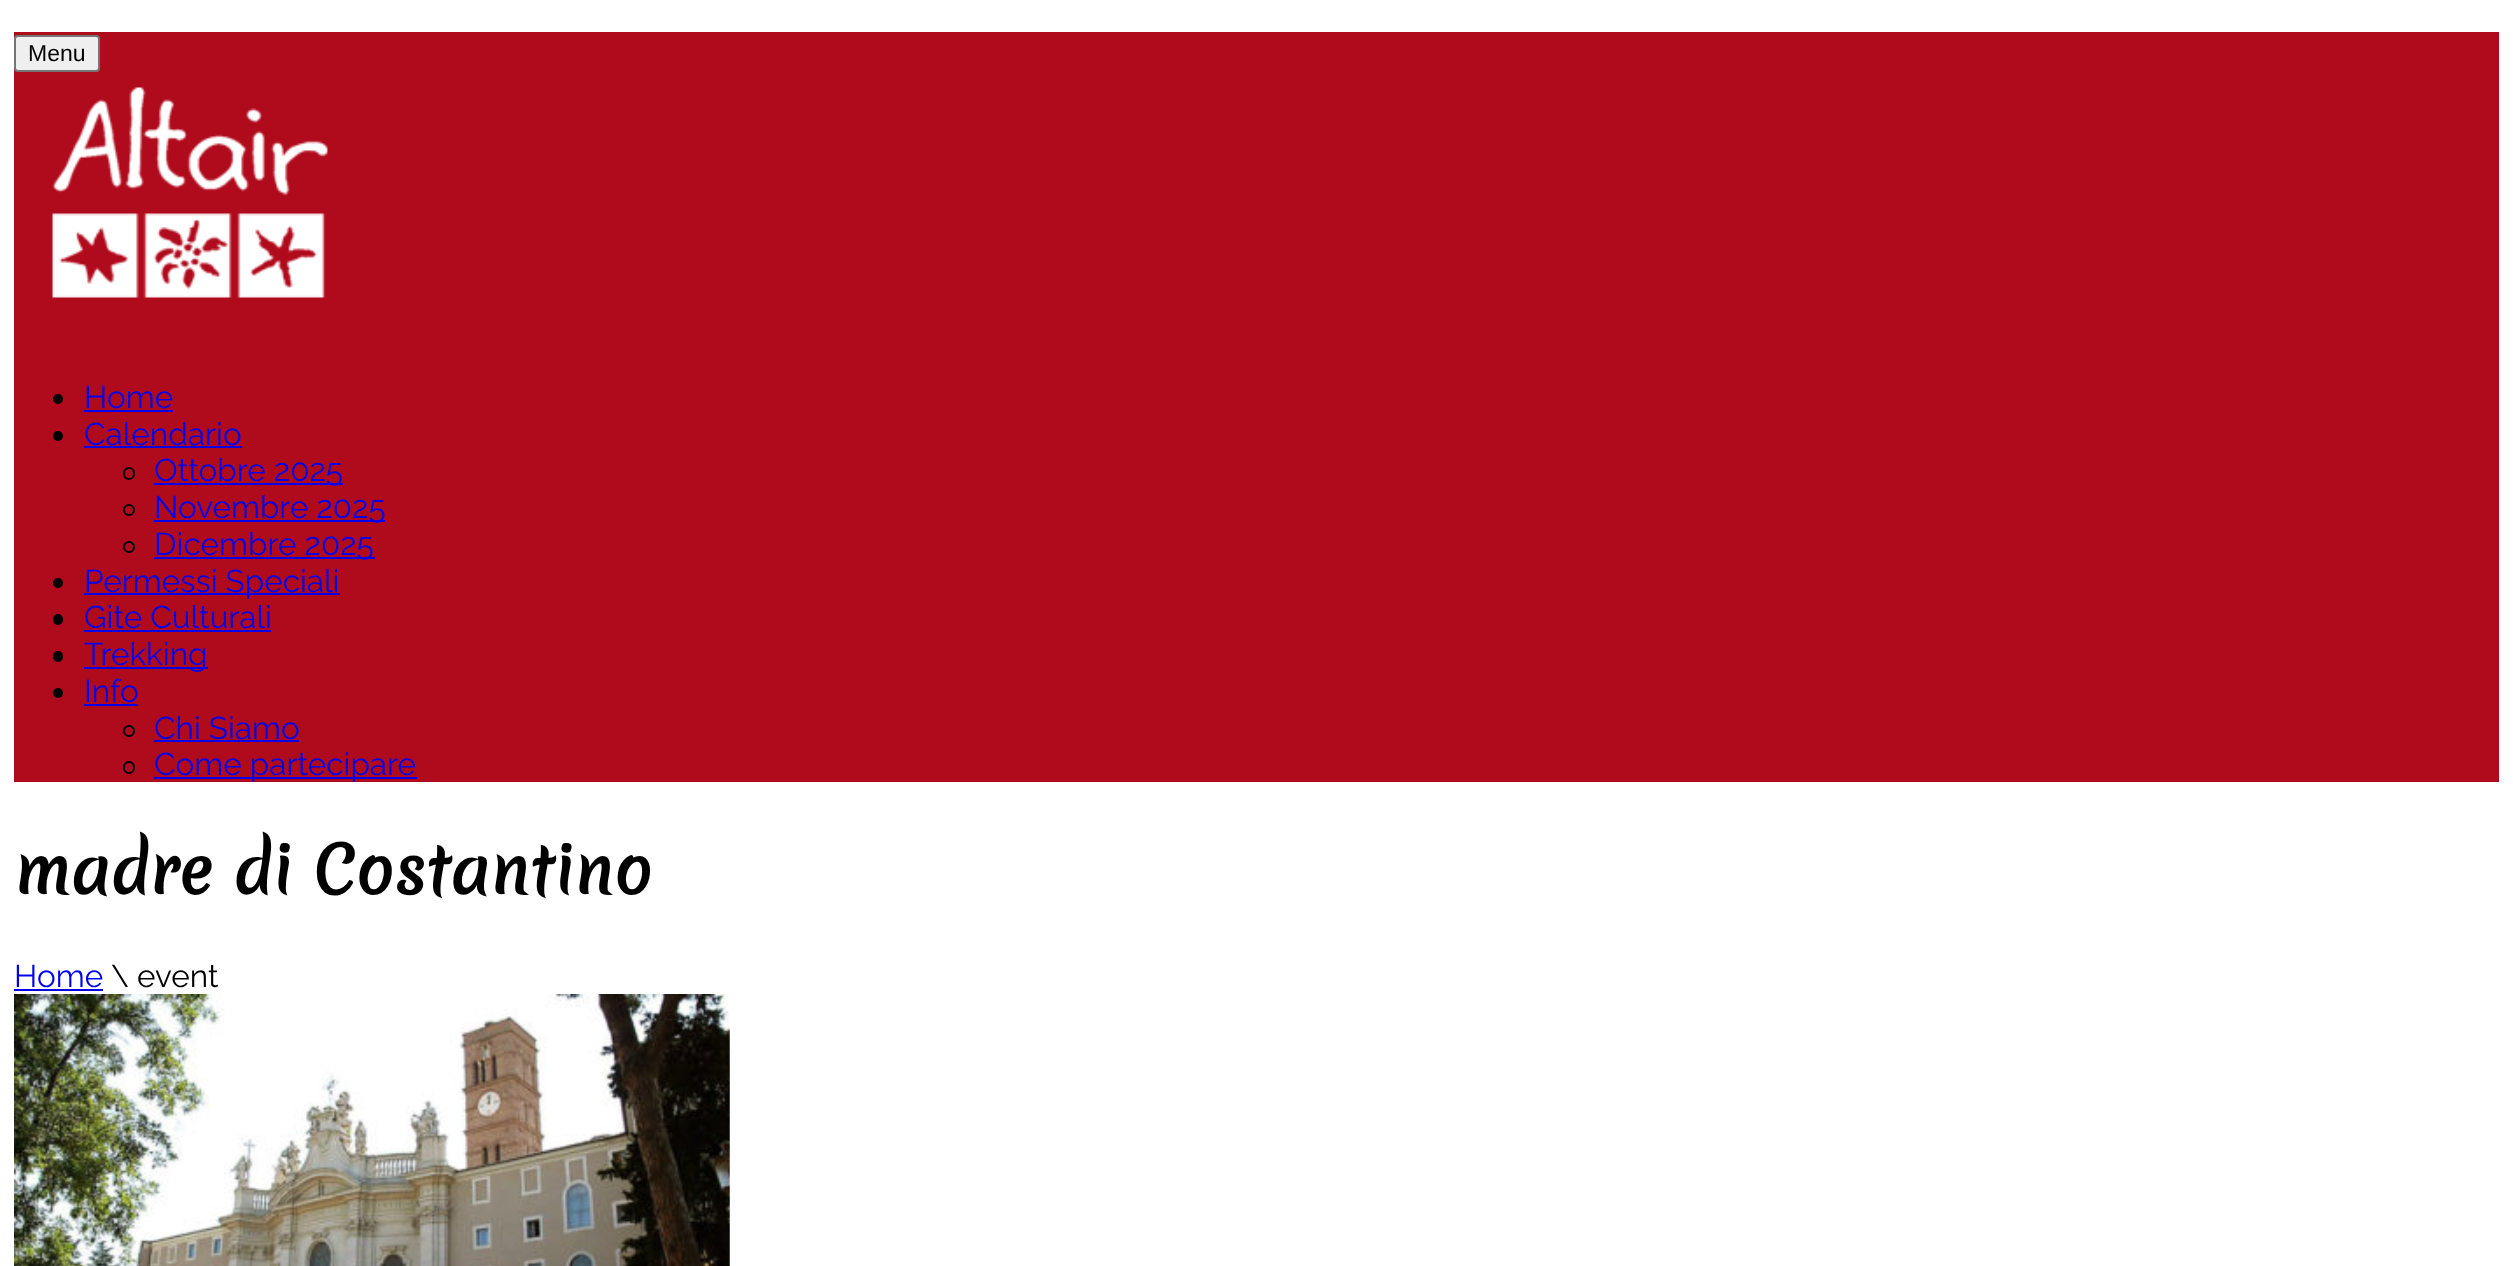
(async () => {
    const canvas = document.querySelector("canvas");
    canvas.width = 2513;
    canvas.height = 1266;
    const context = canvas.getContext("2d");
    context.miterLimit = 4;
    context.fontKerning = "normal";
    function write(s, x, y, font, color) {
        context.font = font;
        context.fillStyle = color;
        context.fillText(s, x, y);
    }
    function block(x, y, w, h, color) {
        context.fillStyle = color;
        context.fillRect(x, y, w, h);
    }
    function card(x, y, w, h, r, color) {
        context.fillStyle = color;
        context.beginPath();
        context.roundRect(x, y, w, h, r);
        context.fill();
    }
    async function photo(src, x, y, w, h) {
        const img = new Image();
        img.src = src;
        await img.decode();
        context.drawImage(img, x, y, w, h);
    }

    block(0, 0, 2513, 1266, "rgb(255, 255, 255)");
    block(14, 32, 2485, 750, "rgb(176, 11, 29)");
    context.fillStyle = "rgb(239, 239, 239)";
    context.beginPath();
    context.roundRect(15, 36, 84, 35, 3);
    context.fill();
    context.strokeStyle = "rgb(118, 118, 118)";
    context.lineWidth = 2;
    context.stroke();
    write("Menu", 28, 61, "23px Liberation Sans", "rgb(0, 0, 0)");
    await photo("media/1.png", 52, 87, 276, 211);
    context.beginPath();
    context.arc(58, 399, 5, 0, Math.PI * 2);
    context.fill();
    write("Home", 84, 408, "100 31.5px Raleway", "rgb(0, 0, 238)");
    block(84, 410, 89, 2, "rgb(0, 0, 238)");
    context.fillStyle = "rgb(0, 0, 0)";
    context.beginPath();
    context.arc(58, 436, 5, 0, Math.PI * 2);
    context.fill();
    write("Calendario", 84, 445, "100 31.5px Raleway", "rgb(0, 0, 238)");
    block(84, 446, 158, 2, "rgb(0, 0, 238)");
    context.beginPath();
    context.roundRect(124, 468, 10, 11, 5);
    context.strokeStyle = "rgb(0, 0, 0)";
    context.stroke();
    block(154, 483, 189, 2, "rgb(0, 0, 238)");
    write("Ottobre 2025", 154, 481, "100 31.5px Raleway", "rgb(0, 0, 238)");
    context.beginPath();
    context.arc(129, 510, 5, 0, Math.PI * 2);
    context.stroke();
    block(154, 520, 231, 2, "rgb(0, 0, 238)");
    write("Novembre 2025", 154, 518, "100 31.5px Raleway", "rgb(0, 0, 238)");
    context.beginPath();
    context.arc(129, 547, 5, 0, Math.PI * 2);
    context.stroke();
    block(154, 557, 221, 2, "rgb(0, 0, 238)");
    write("Dicembre 2025", 154, 555, "100 31.5px Raleway", "rgb(0, 0, 238)");
    context.fillStyle = "rgb(0, 0, 0)";
    context.beginPath();
    context.arc(58, 583, 5, 0, Math.PI * 2);
    context.fill();
    block(84, 593, 256, 2, "rgb(0, 0, 238)");
    write("Permessi Speciali", 84, 592, "100 31.5px Raleway", "rgb(0, 0, 238)");
    card(53, 614, 10, 11, 5, "rgb(0, 0, 0)");
    write("Gite Culturali", 84, 628, "100 31.5px Raleway", "rgb(0, 0, 238)");
    block(84, 630, 187, 2, "rgb(0, 0, 238)");
    card(53, 651, 10, 11, 5, "rgb(0, 0, 0)");
    block(84, 667, 124, 2, "rgb(0, 0, 238)");
    write("Trekking", 84, 665, "100 31.5px Raleway", "rgb(0, 0, 238)");
    context.fillStyle = "rgb(0, 0, 0)";
    context.beginPath();
    context.arc(58, 693, 5, 0, Math.PI * 2);
    context.fill();
    write("Info", 84, 702, "100 31.5px Raleway", "rgb(0, 0, 238)");
    block(84, 704, 54, 2, "rgb(0, 0, 238)");
    context.beginPath();
    context.arc(129, 731, 5, 0, Math.PI * 2);
    context.stroke();
    write("Chi Siamo", 154, 739, "100 31.5px Raleway", "rgb(0, 0, 238)");
    block(154, 740, 145, 2, "rgb(0, 0, 238)");
    context.beginPath();
    context.roundRect(124, 762, 10, 11, 5);
    context.stroke();
    block(154, 777, 263, 2, "rgb(0, 0, 238)");
    write("Come partecipare", 154, 775, "100 31.5px Raleway", "rgb(0, 0, 238)");
    write("madre di Costantino", 14, 894, "bold 63px Merienda", "rgb(0, 0, 0)");
    write("Home", 14, 987, "100 31.5px Raleway", "rgb(0, 0, 238)");
    block(14, 989, 89, 2, "rgb(0, 0, 238)");
    write("\\ event", 111, 987, "100 31.5px Raleway", "rgb(0, 0, 0)");
    await photo("media/2.png", 14, 994, 716, 272);
})();
